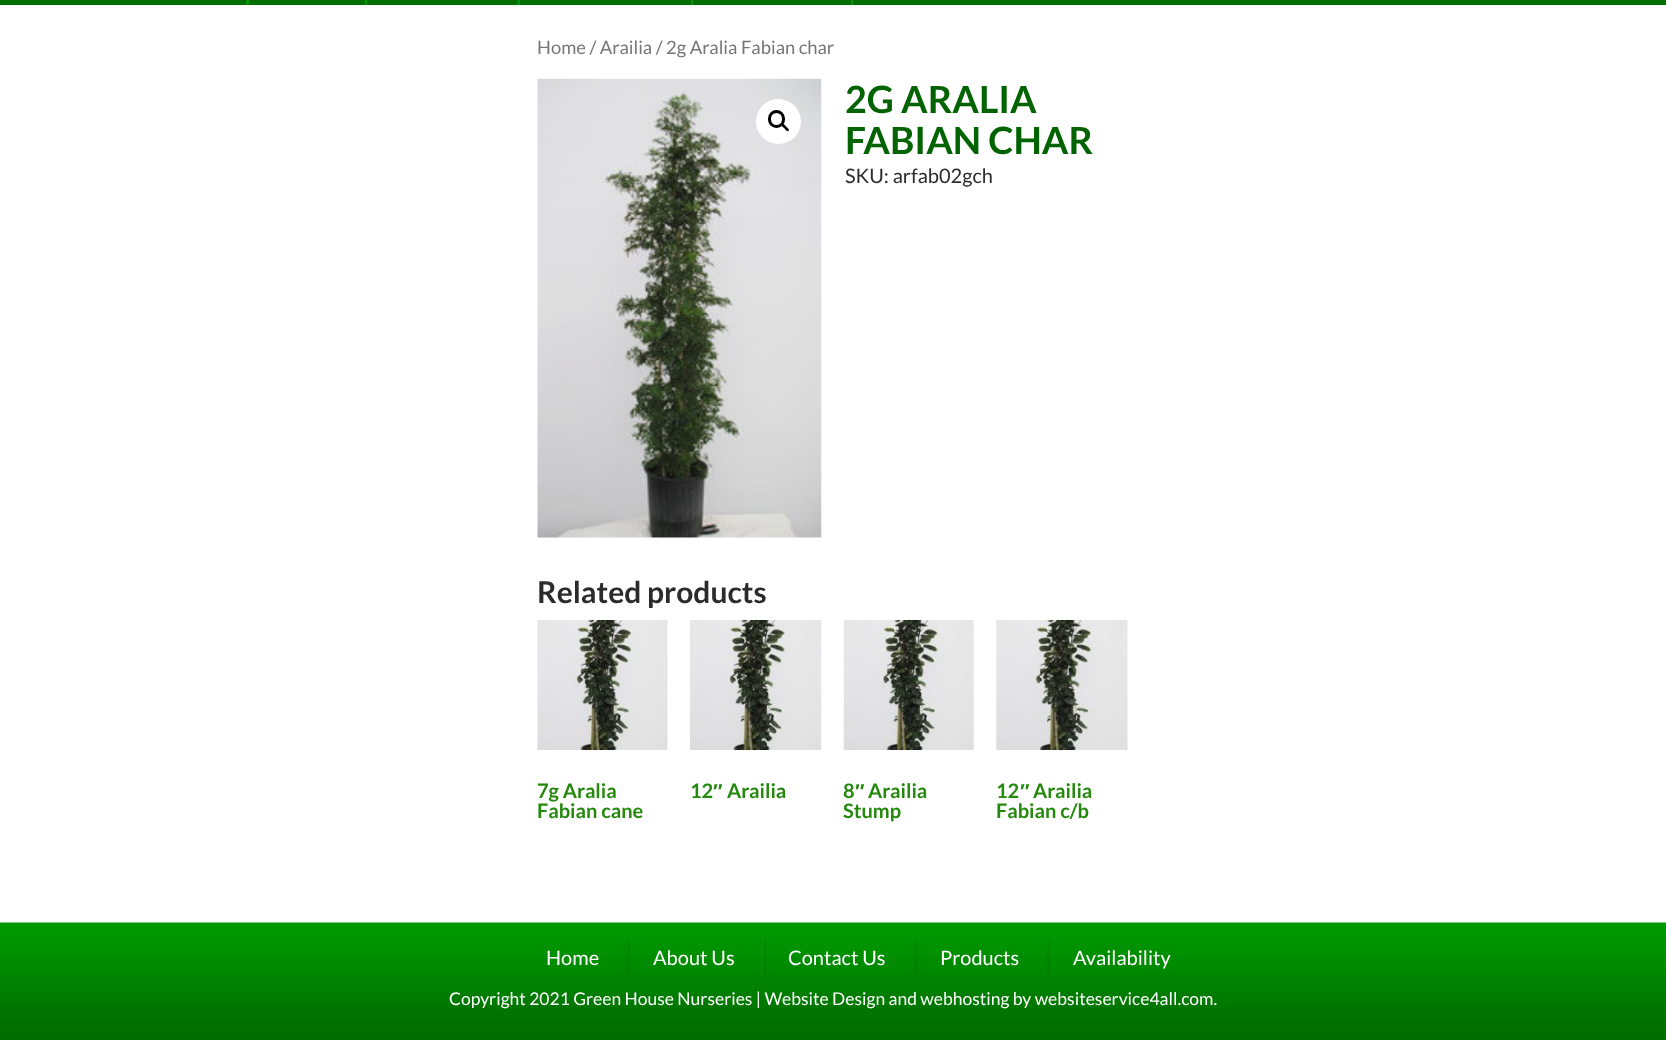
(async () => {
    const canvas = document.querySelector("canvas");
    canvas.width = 1666;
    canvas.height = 1044;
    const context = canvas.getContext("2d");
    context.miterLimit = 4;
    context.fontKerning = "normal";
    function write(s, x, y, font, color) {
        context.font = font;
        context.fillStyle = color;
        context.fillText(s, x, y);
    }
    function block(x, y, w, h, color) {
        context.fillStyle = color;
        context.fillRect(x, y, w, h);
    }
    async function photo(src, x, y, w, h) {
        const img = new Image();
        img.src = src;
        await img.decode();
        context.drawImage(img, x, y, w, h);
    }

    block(0, 0, 1666, 1044, "rgb(255, 255, 255)");
    block(0, 0, 1666, 5, "rgb(0, 110, 0)");
    await photo("media/1.png", 246, 0, 5, 5);
    await photo("media/2.png", 365, 0, 4, 5);
    await photo("media/3.png", 517, 0, 4, 5);
    await photo("media/4.png", 691, 0, 4, 5);
    await photo("media/4.png", 851, 0, 4, 5);
    write("Home / Arailia / 2g Aralia Fabian char", 537, 54, "18.4px Lato", "rgb(118, 118, 118)");
    await photo("media/5.png", 537, 78, 285, 460);
    context.fillStyle = "rgb(255, 255, 255)";
    context.beginPath();
    context.arc(778.5, 121.5, 22.5, 0, Math.PI * 2);
    context.fill();
    context.beginPath();
    context.roundRect(769.5, 111.5, 14, 15, 7);
    context.strokeStyle = "rgb(0, 0, 0)";
    context.lineWidth = 3;
    context.stroke();
    context.fillStyle = "rgb(0, 0, 0)";
    context.beginPath();
    context.moveTo(781.5, 123.5);
    context.bezierCurveTo(783, 122.5, 785, 125.5, 786, 126.5);
    context.bezierCurveTo(786.5, 127, 790, 129.5, 788.5, 131);
    context.bezierCurveTo(787, 132, 785, 129, 784, 128);
    context.bezierCurveTo(783.5, 127.5, 780, 125, 781.5, 123.5);
    context.closePath();
    context.fill();
    write("2G ARALIA", 845, 113, "bold 37.5px Lato", "rgb(1, 99, 1)");
    write("FABIAN CHAR", 845, 154, "bold 37.5px Lato", "rgb(1, 99, 1)");
    write("SKU: arfab02gch", 845, 183, "20px Lato", "rgb(43, 43, 43)");
    write("Related products", 537, 603, "bold 30px Lato", "rgb(43, 43, 43)");
    await photo("media/6.png", 537, 620, 131, 130);
    write("7g Aralia", 537, 798, "bold 20px Lato", "rgb(36, 137, 13)");
    write("Fabian cane", 537, 818, "bold 20px Lato", "rgb(36, 137, 13)");
    await photo("media/7.png", 690, 620, 132, 130);
    write("12", 690, 798, "bold 20px Lato", "rgb(36, 137, 13)");
    write("″", 713, 798, "bold 20px Liberation Sans", "rgb(36, 137, 13)");
    write("Arailia", 727, 798, "bold 20px Lato", "rgb(36, 137, 13)");
    await photo("media/8.png", 843, 620, 131, 130);
    write("8", 843, 798, "bold 20px Lato", "rgb(36, 137, 13)");
    write("″", 855, 798, "bold 20px Liberation Sans", "rgb(36, 137, 13)");
    write("Arailia", 868, 798, "bold 20px Lato", "rgb(36, 137, 13)");
    write("Stump", 843, 818, "bold 20px Lato", "rgb(36, 137, 13)");
    await photo("media/9.png", 996, 620, 132, 130);
    write("12", 996, 798, "bold 20px Lato", "rgb(36, 137, 13)");
    write("″", 1020, 798, "bold 20px Liberation Sans", "rgb(36, 137, 13)");
    write("Arailia", 1033, 798, "bold 20px Lato", "rgb(36, 137, 13)");
    write("Fabian c/b", 996, 818, "bold 20px Lato", "rgb(36, 137, 13)");
    await photo("media/10.png", 0, 922, 1666, 118);
    write("Home", 546, 965, "20px Lato", "rgb(255, 255, 255)");
    await photo("media/11.png", 627, 939, 3, 36);
    write("About Us", 653, 965, "20px Lato", "rgb(255, 255, 255)");
    await photo("media/12.png", 764, 939, 2, 36);
    write("Contact Us", 788, 965, "20px Lato", "rgb(255, 255, 255)");
    await photo("media/13.png", 915, 939, 3, 36);
    write("Products", 940, 965, "20px Lato", "rgb(255, 255, 255)");
    await photo("media/11.png", 1047, 939, 3, 36);
    write("Availability", 1073, 965, "20px Lato", "rgb(255, 255, 255)");
    write("Copyright 2021 Green House Nurseries | Website Design and webhosting by websiteservice4all.com.", 449, 1005, "17.5px Lato", "rgb(255, 255, 255)");
})();
